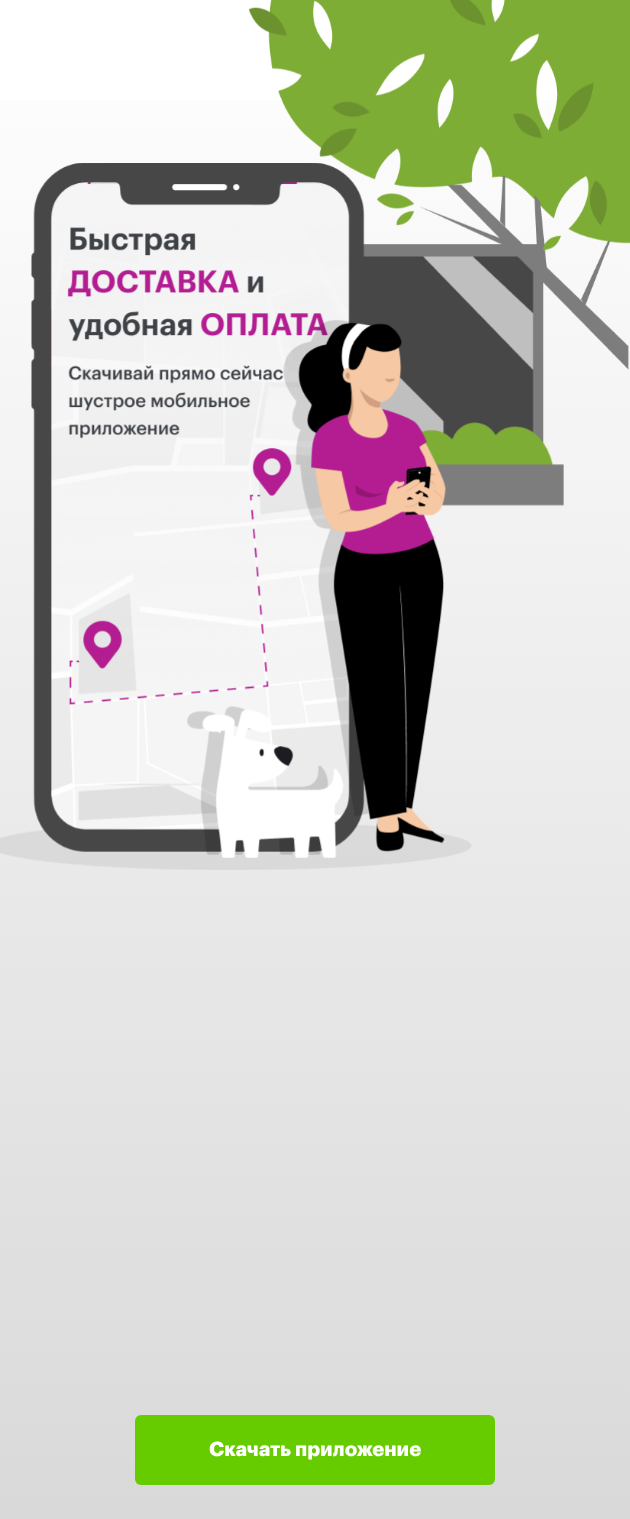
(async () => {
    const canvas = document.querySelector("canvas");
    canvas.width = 630;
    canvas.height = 1519;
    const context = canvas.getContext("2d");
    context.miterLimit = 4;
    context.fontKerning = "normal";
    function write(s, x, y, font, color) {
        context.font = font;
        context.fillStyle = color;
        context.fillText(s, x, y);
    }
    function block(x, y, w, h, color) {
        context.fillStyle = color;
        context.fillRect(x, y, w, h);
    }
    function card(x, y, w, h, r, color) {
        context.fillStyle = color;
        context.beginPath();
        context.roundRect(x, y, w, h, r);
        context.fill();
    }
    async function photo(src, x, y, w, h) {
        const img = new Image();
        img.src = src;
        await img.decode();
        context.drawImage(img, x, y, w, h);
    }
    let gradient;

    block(0, 0, 630, 1519, "rgb(255, 255, 255)");
    gradient = context.createLinearGradient(315, 0, 315, 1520);
    gradient.addColorStop(0, "rgb(255, 255, 255)");
    gradient.addColorStop(1, "rgb(217, 217, 217)");
    context.fillStyle = gradient;
    context.fillRect(0, 100, 630, 1419);
    await photo("media/2.png", 0, 163, 564, 707);
    await photo("media/1.png", 249, 0, 381, 370);
    card(135, 1415, 360, 70, 6, "rgb(102, 204, 0)");
    write("Скачать приложение", 209, 1456, "bold 20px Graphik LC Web", "rgb(255, 255, 255)");
})();
